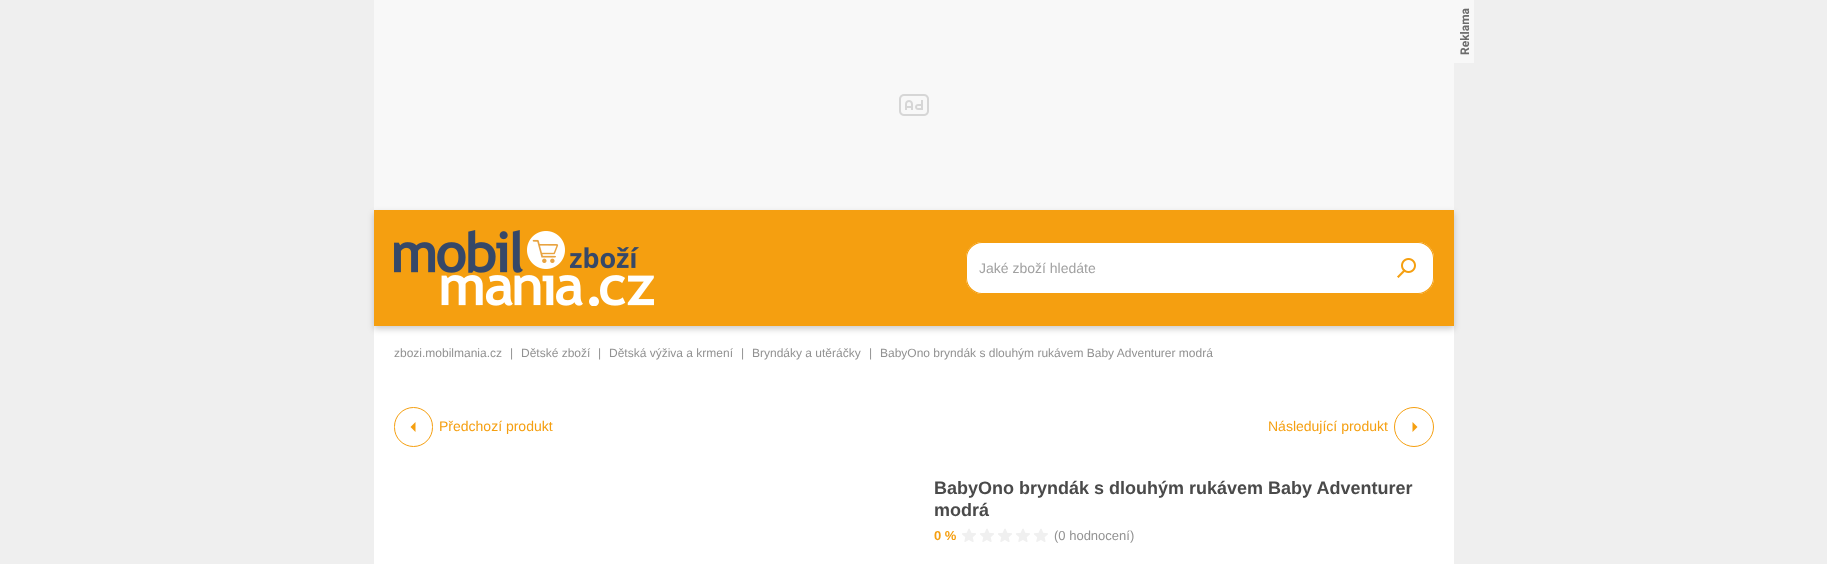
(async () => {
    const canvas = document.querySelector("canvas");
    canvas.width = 1827;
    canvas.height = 564;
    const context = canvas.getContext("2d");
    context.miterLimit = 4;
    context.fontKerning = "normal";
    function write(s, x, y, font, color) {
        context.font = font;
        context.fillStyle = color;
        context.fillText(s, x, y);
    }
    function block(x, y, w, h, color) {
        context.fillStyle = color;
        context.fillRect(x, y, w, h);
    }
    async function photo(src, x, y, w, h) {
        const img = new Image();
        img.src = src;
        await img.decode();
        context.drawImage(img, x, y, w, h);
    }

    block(0, 0, 1827, 564, "rgb(239, 239, 239)");
    block(374, 0, 1080, 210, "rgb(248, 248, 248)");
    await photo("media/1.png", 899, 94, 30, 22);
    block(1454, 0, 20, 63, "rgb(248, 248, 248)");
    context.font = "bold 12px Roboto";
    context.fillStyle = "rgb(107, 107, 107)";
    context.save();
    context.translate(1469, 55);
    context.rotate(-90 * Math.PI / 180);
    context.fillText("Reklama", 0, 0);
    context.restore();
    block(374, 326, 1080, 238, "rgb(255, 255, 255)");
    context.fillStyle = "rgba(0, 0, 0, 0.2)";
    context.filter = "blur(3px)";
    context.beginPath();
    context.rect(374, 213, 1080, 116);
    context.fill();
    context.filter = "none";
    block(374, 210, 1080, 116, "rgb(245, 159, 16)");
    await photo("media/2.png", 394, 230, 260, 76);
    context.fillStyle = "rgb(255, 255, 255)";
    context.beginPath();
    context.roundRect(966, 242, 416, 52, [16, 0, 0, 16]);
    context.fill();
    context.fillStyle = "rgb(245, 159, 16)";
    context.beginPath();
    context.moveTo(982, 242);
    context.lineTo(1382, 242);
    context.lineTo(1382, 294);
    context.lineTo(982, 294);
    context.bezierCurveTo(973, 294, 966, 287, 966, 278);
    context.lineTo(966, 258);
    context.bezierCurveTo(966, 249, 973, 242, 982, 242);
    context.closePath();
    context.moveTo(982, 243);
    context.lineTo(1382, 243);
    context.lineTo(1382, 293);
    context.lineTo(982, 293);
    context.bezierCurveTo(974, 293, 967, 286, 967, 278);
    context.lineTo(967, 258);
    context.bezierCurveTo(967, 250, 974, 243, 982, 243);
    context.closePath();
    context.fill("evenodd");
    write("Jaké zboží hledáte", 979, 273, "14px Liberation Sans", "rgb(161, 161, 161)");
    context.fillStyle = "rgb(255, 255, 255)";
    context.beginPath();
    context.roundRect(1382, 242, 52, 52, [0, 16, 16, 0]);
    context.fill();
    await photo("media/3.png", 1397, 258, 19, 20);
    context.fillStyle = "rgb(245, 159, 16)";
    context.beginPath();
    context.moveTo(1382, 242);
    context.lineTo(1418, 242);
    context.bezierCurveTo(1427, 242, 1434, 249, 1434, 258);
    context.lineTo(1434, 278);
    context.bezierCurveTo(1434, 287, 1427, 294, 1418, 294);
    context.lineTo(1382, 294);
    context.closePath();
    context.moveTo(1382, 243);
    context.lineTo(1418, 243);
    context.bezierCurveTo(1426, 243, 1433, 250, 1433, 258);
    context.lineTo(1433, 278);
    context.bezierCurveTo(1433, 286, 1426, 293, 1418, 293);
    context.lineTo(1382, 293);
    context.closePath();
    context.fill("evenodd");
    write("zbozi.mobilmania.cz", 394, 357, "12px Liberation Sans", "rgb(146, 146, 146)");
    write("|", 510, 357, "12px Liberation Sans", "rgb(146, 146, 146)");
    write("Dětské zboží", 521, 357, "12px Liberation Sans", "rgb(146, 146, 146)");
    write("|", 598, 357, "12px Liberation Sans", "rgb(146, 146, 146)");
    write("Dětská výživa a krmení", 609, 357, "12px Liberation Sans", "rgb(146, 146, 146)");
    write("|", 741, 357, "12px Liberation Sans", "rgb(146, 146, 146)");
    write("Bryndáky a utěráčky", 752, 357, "12px Liberation Sans", "rgb(146, 146, 146)");
    write("|", 869, 357, "12px Liberation Sans", "rgb(146, 146, 146)");
    write("BabyOno bryndák s dlouhým rukávem Baby Adventurer modrá", 880, 357, "12px Liberation Sans", "rgb(146, 146, 146)");
    context.beginPath();
    context.roundRect(394.5, 407.5, 38, 39, 19);
    context.strokeStyle = "rgb(245, 159, 16)";
    context.stroke();
    context.fillStyle = "rgb(245, 159, 16)";
    context.beginPath();
    context.moveTo(415.5, 422);
    context.lineTo(415.5, 432);
    context.lineTo(410.5, 427);
    context.closePath();
    context.fill();
    write("Předchozí produkt", 439, 431, "14px Liberation Sans", "rgb(245, 159, 16)");
    write("Následující produkt", 1268, 431, "14px Liberation Sans", "rgb(245, 159, 16)");
    context.beginPath();
    context.arc(1414, 427, 19.5, 0, Math.PI * 2);
    context.stroke();
    context.beginPath();
    context.moveTo(1412.5, 432);
    context.lineTo(1412.5, 422);
    context.lineTo(1417.5, 427);
    context.closePath();
    context.fill();
    write("BabyOno bryndák s dlouhým rukávem Baby Adventurer", 934, 494, "bold 18px Liberation Sans", "rgb(74, 74, 74)");
    write("modrá", 934, 516, "bold 18px Liberation Sans", "rgb(74, 74, 74)");
    write("0 %", 934, 540, "bold 13px Liberation Sans", "rgb(245, 159, 16)");
    block(962, 528, 86, 15, "rgb(240, 240, 240)");
    await photo("media/4.png", 962, 528, 86, 15);
    write("(0 hodnocení)", 1054, 540, "13px Liberation Sans", "rgb(146, 146, 146)");
})();
